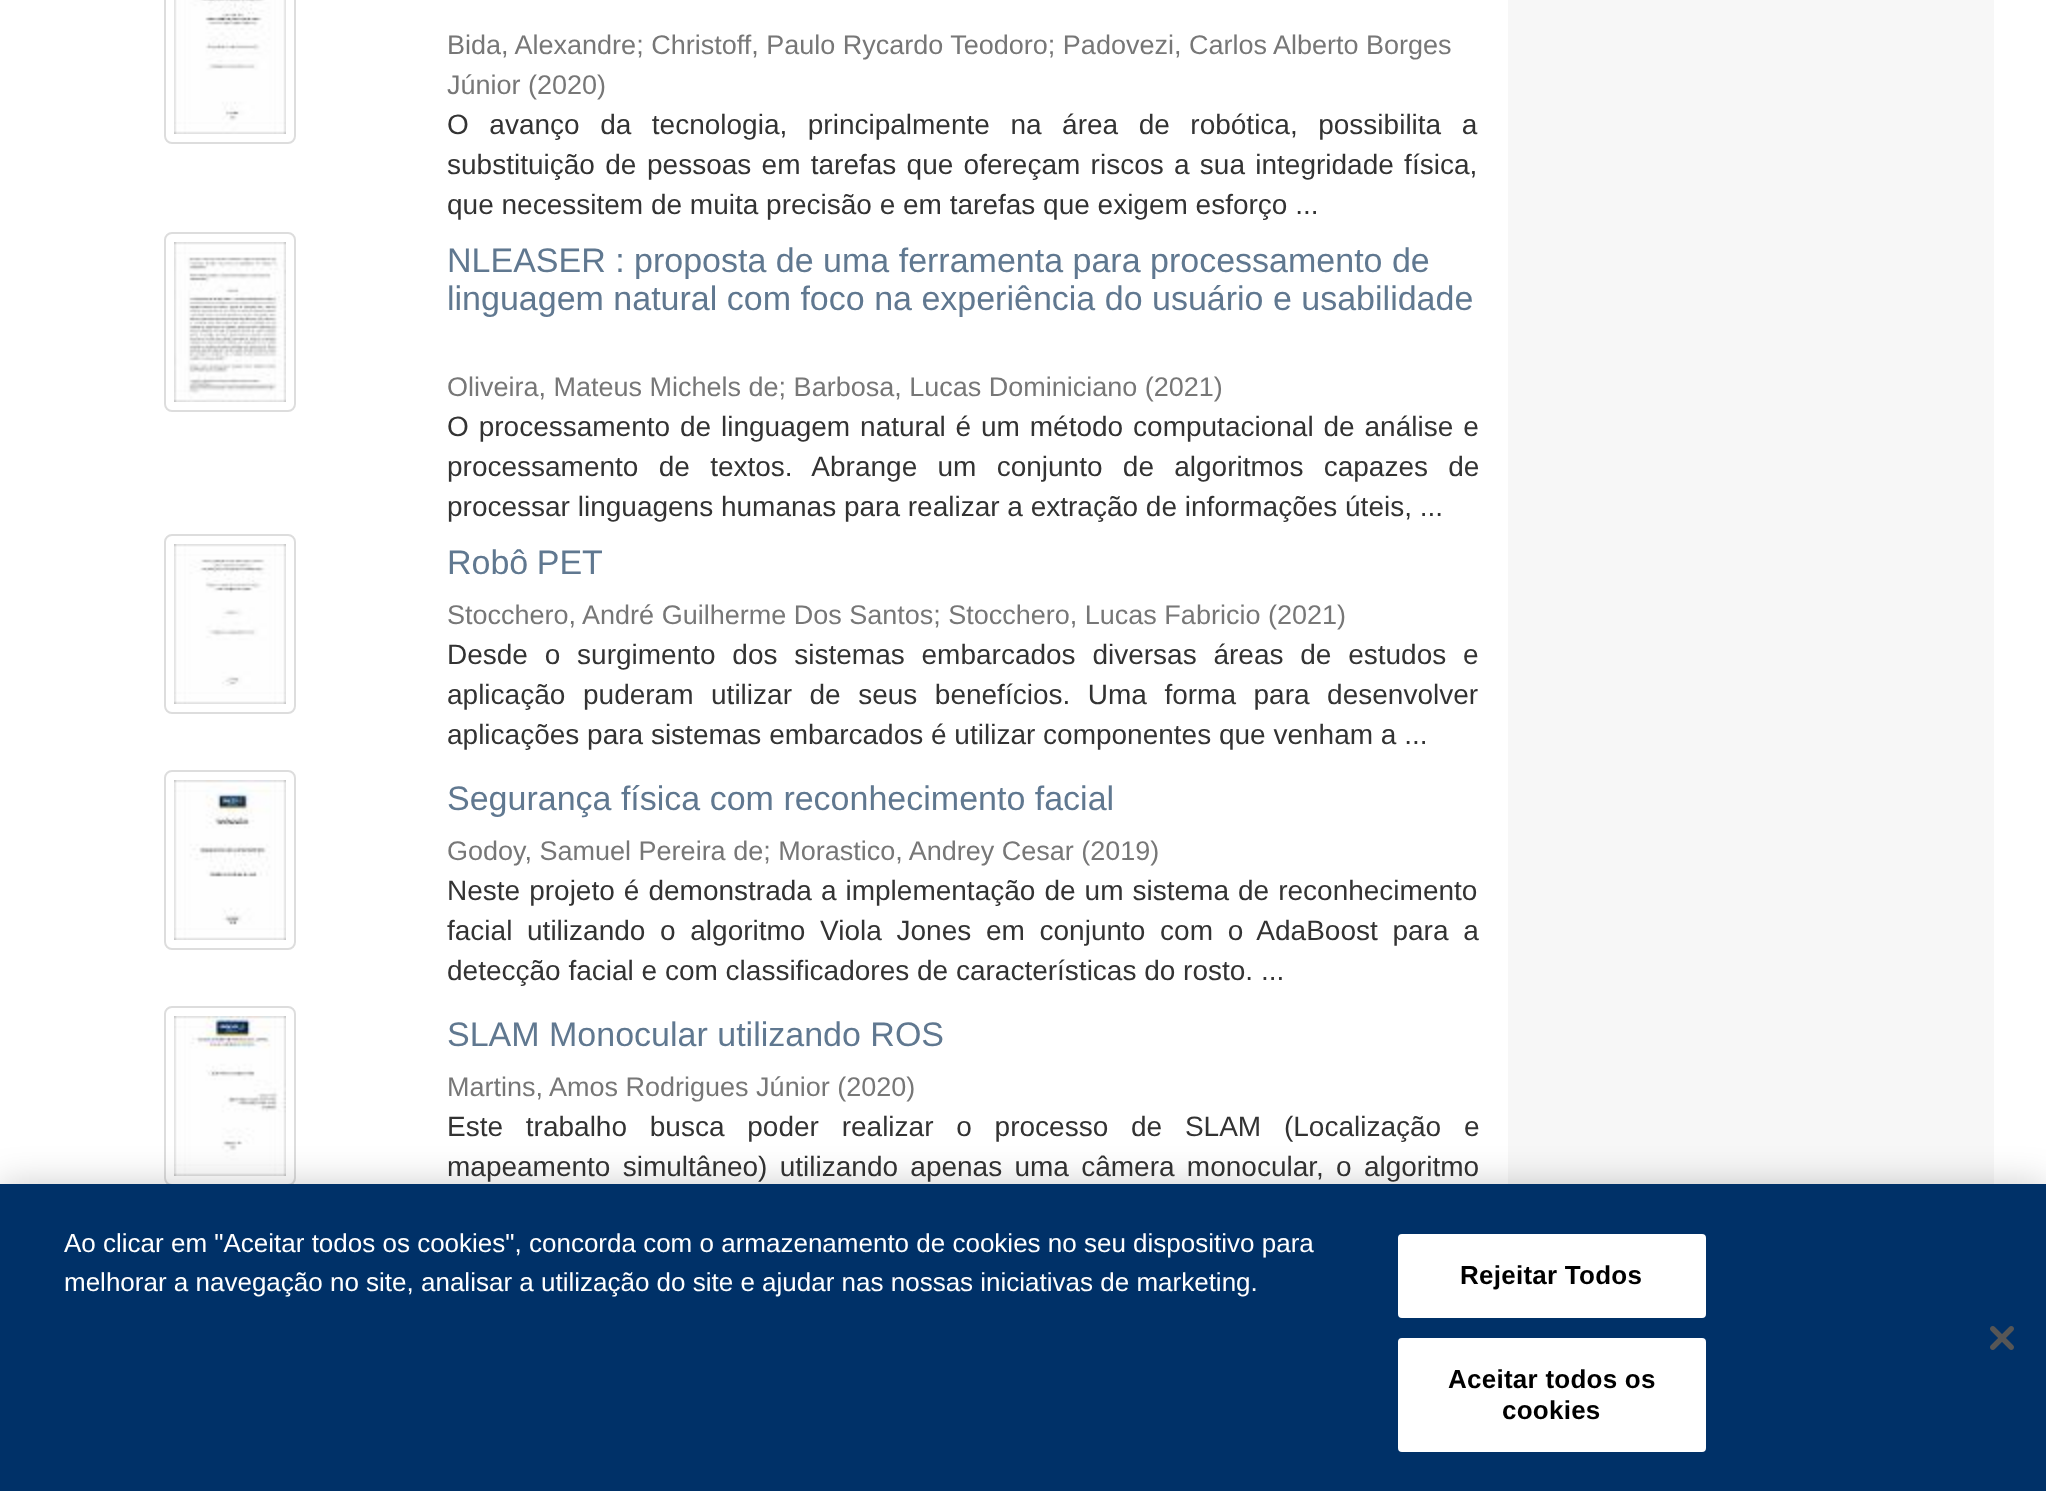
(async () => {
    const canvas = document.querySelector("canvas");
    canvas.width = 2046;
    canvas.height = 1491;
    const context = canvas.getContext("2d");
    context.miterLimit = 4;
    context.fontKerning = "normal";
    function write(s, x, y, font, color) {
        context.font = font;
        context.fillStyle = color;
        context.fillText(s, x, y);
    }
    function block(x, y, w, h, color) {
        context.fillStyle = color;
        context.fillRect(x, y, w, h);
    }
    async function photo(src, x, y, w, h) {
        const img = new Image();
        img.src = src;
        await img.decode();
        context.drawImage(img, x, y, w, h);
    }

    block(0, 0, 2046, 1491, "rgb(255, 255, 255)");
    block(1508, 0, 486, 1184, "rgb(247, 247, 247)");
    context.beginPath();
    context.roundRect(165, -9, 130, 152, 7);
    context.strokeStyle = "rgb(221, 221, 221)";
    context.lineWidth = 2;
    context.stroke();
    await photo("media/1.png", 174, 0, 112, 134);
    write("Bida, Alexandre; Christoff, Paulo Rycardo Teodoro; Padovezi, Carlos Alberto Borges", 447, 54, "27px Liberation Sans", "rgb(119, 119, 119)");
    write("Júnior", 447, 94, "27px Liberation Sans", "rgb(119, 119, 119)");
    write("(2020)", 528, 94, "27px Liberation Sans", "rgb(119, 119, 119)");
    context.wordSpacing = "12.75px";
    write("O avanço da tecnologia, principalmente na área de robótica, possibilita a", 447, 134, "28px Liberation Sans", "rgb(51, 51, 51)");
    context.wordSpacing = "2.5px";
    write("substituição de", 447, 174, "28px Liberation Sans", "rgb(51, 51, 51)");
    write("pessoas em tarefas que ofereçam riscos a sua integridade física,", 647, 174, "28px Liberation Sans", "rgb(51, 51, 51)");
    context.wordSpacing = "0px";
    write("que necessitem de muita precisão e em tarefas que exigem esforço ...", 447, 214, "28px Liberation Sans", "rgb(51, 51, 51)");
    context.beginPath();
    context.roundRect(165, 233, 130, 178, 7);
    context.stroke();
    await photo("media/2.png", 174, 242, 112, 160);
    write("NLEASER : proposta de uma ferramenta para processamento de", 447, 272, "34px Liberation Sans", "rgb(96, 120, 144)");
    write("linguagem natural com foco na experiência do usuário e usabilidade", 447, 310, "34px Liberation Sans", "rgb(96, 120, 144)");
    write("Oliveira, Mateus Michels de; Barbosa, Lucas Dominiciano (2021)", 447, 396, "27px Liberation Sans", "rgb(119, 119, 119)");
    context.wordSpacing = "2.1px";
    write("O processamento de linguagem natural é um método computacional de análise e", 447, 436, "28px Liberation Sans", "rgb(51, 51, 51)");
    context.wordSpacing = "12.5px";
    write("processamento de textos. Abrange um conjunto de algoritmos capazes de", 447, 476, "28px Liberation Sans", "rgb(51, 51, 51)");
    context.wordSpacing = "0px";
    write("processar linguagens humanas para realizar a extração de informações úteis, ...", 447, 516, "28px Liberation Sans", "rgb(51, 51, 51)");
    context.beginPath();
    context.roundRect(165, 535, 130, 178, 7);
    context.stroke();
    await photo("media/3.png", 174, 544, 112, 160);
    context.wordSpacing = "-1px";
    write("Robô PET", 447, 574, "34px Liberation Sans", "rgb(96, 120, 144)");
    context.wordSpacing = "0px";
    write("Stocchero, André Guilherme Dos Santos; Stocchero, Lucas Fabricio (2021)", 447, 624, "27px Liberation Sans", "rgb(119, 119, 119)");
    context.wordSpacing = "9px";
    write("Desde o surgimento dos sistemas embarcados diversas áreas de estudos e", 447, 664, "28px Liberation Sans", "rgb(51, 51, 51)");
    context.wordSpacing = "0px";
    write("aplicação", 447, 704, "28px Liberation Sans", "rgb(51, 51, 51)");
    context.wordSpacing = "9.75px";
    write("puderam utilizar de seus benefícios. Uma forma para desenvolver", 583, 704, "28px Liberation Sans", "rgb(51, 51, 51)");
    context.wordSpacing = "0px";
    write("aplicações para sistemas embarcados é utilizar componentes que venham a ...", 447, 744, "28px Liberation Sans", "rgb(51, 51, 51)");
    context.beginPath();
    context.roundRect(165, 771, 130, 178, 7);
    context.stroke();
    await photo("media/4.png", 174, 780, 112, 160);
    write("Segurança física com reconhecimento facial", 447, 810, "34px Liberation Sans", "rgb(96, 120, 144)");
    write("Godoy, Samuel Pereira de; Morastico, Andrey Cesar (2019)", 447, 860, "27px Liberation Sans", "rgb(119, 119, 119)");
    context.wordSpacing = "1.25px";
    write("Neste projeto é demonstrada a implementação de um sistema de reconhecimento", 447, 900, "28px Liberation Sans", "rgb(51, 51, 51)");
    context.wordSpacing = "6.9px";
    write("facial utilizando o algoritmo Viola Jones em conjunto com o AdaBoost para a", 447, 940, "28px Liberation Sans", "rgb(51, 51, 51)");
    context.wordSpacing = "0px";
    write("detecção facial e com classificadores de características do rosto. ...", 447, 980, "28px Liberation Sans", "rgb(51, 51, 51)");
    context.beginPath();
    context.roundRect(165, 1007, 130, 178, 7);
    context.stroke();
    await photo("media/5.png", 174, 1016, 112, 160);
    write("SLAM Monocular utilizando ROS", 447, 1046, "34px Liberation Sans", "rgb(96, 120, 144)");
    write("Martins, Amos Rodrigues Júnior (2020)", 447, 1096, "27px Liberation Sans", "rgb(119, 119, 119)");
    context.wordSpacing = "15px";
    write("Este trabalho busca poder realizar o processo de SLAM (Localização e", 447, 1136, "28px Liberation Sans", "rgb(51, 51, 51)");
    context.wordSpacing = "4.5px";
    write("mapeamento simultâneo) utilizando apenas uma câmera monocular, o algoritmo", 447, 1176, "28px Liberation Sans", "rgb(51, 51, 51)");
    context.fillStyle = "rgba(0, 0, 0, 0.2)";
    context.filter = "blur(18px)";
    context.beginPath();
    context.rect(0, 1184, 2046, 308);
    context.fill();
    context.filter = "none";
    block(0, 1184, 2046, 307, "rgb(0, 49, 104)");
    context.wordSpacing = "0px";
    write("Ao clicar em \"Aceitar todos os cookies\", concorda com o armazenamento de cookies no seu dispositivo para", 64, 1252, "26px Liberation Sans", "rgb(255, 255, 255)");
    write("melhorar a navegação no site, analisar a utilização do site e ajudar nas nossas iniciativas de marketing.", 64, 1291, "26px Liberation Sans", "rgb(255, 255, 255)");
    context.beginPath();
    context.roundRect(1399, 1235, 306, 82, 3);
    context.fill();
    context.strokeStyle = "rgb(255, 255, 255)";
    context.stroke();
    context.letterSpacing = "0.25px";
    write("Rejeitar Todos", 1460, 1284, "bold 26px Liberation Sans", "rgb(0, 0, 0)");
    context.fillStyle = "rgb(255, 255, 255)";
    context.beginPath();
    context.roundRect(1399, 1339, 306, 112, 3);
    context.fill();
    context.stroke();
    write("Aceitar todos os", 1448, 1388, "bold 26px Liberation Sans", "rgb(0, 0, 0)");
    write("cookies", 1502, 1419, "bold 26px Liberation Sans", "rgb(0, 0, 0)");
    await photo("media/6.png", 1990, 1326, 24, 24);
})();
